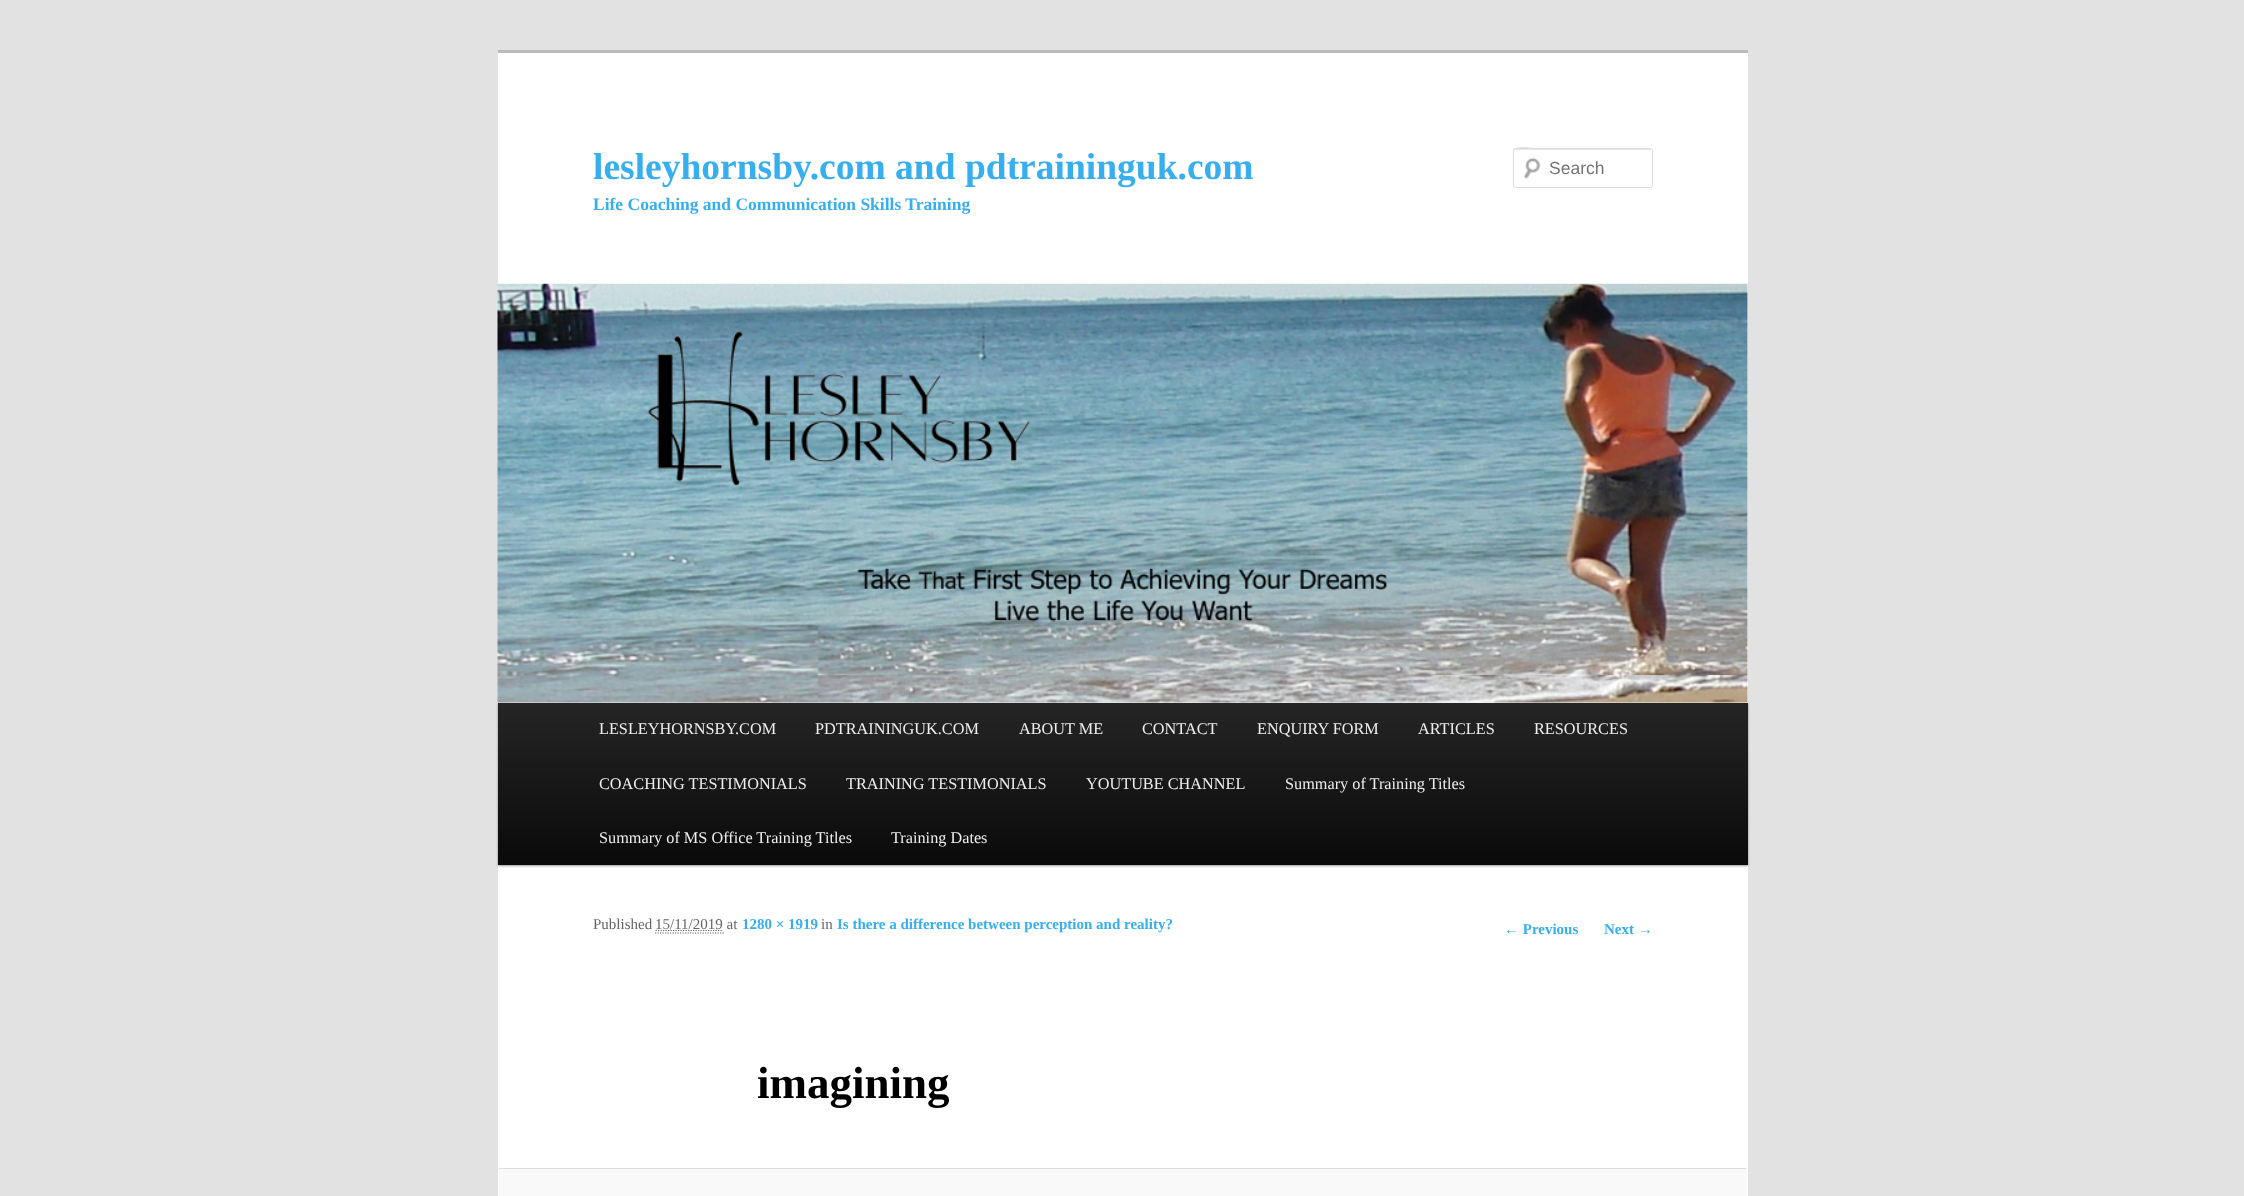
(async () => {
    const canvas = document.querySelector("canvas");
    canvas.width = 2244;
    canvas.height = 1196;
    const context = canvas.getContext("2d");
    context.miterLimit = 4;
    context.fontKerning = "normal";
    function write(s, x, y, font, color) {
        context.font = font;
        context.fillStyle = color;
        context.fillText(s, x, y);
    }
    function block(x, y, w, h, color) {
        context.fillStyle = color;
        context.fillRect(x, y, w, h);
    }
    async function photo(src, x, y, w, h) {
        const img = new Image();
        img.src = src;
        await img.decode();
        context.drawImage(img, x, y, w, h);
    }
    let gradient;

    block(0, 0, 2244, 1196, "rgb(226, 226, 226)");
    block(498, 53, 1250, 1143, "rgb(255, 255, 255)");
    block(498, 50, 1250, 3, "rgb(187, 187, 187)");
    write("lesleyhornsby.com and pdtraininguk.com", 593, 179, "bold 37.5px Liberation Serif", "rgb(55, 174, 238)");
    write("Life Coaching and Communication Skills Training", 593, 210, "bold 17.5px Liberation Serif", "rgb(55, 174, 238)");
    await photo("media/1.png", 1523, 157, 18, 22);
    context.fillStyle = "rgb(230, 230, 230)";
    context.beginPath();
    context.moveTo(1515, 150);
    context.lineTo(1651, 150);
    context.lineTo(1651, 151);
    context.lineTo(1651, 149);
    context.lineTo(1538, 149);
    context.bezierCurveTo(1537, 149, 1514, 143, 1514, 151);
    context.closePath();
    context.fill();
    context.beginPath();
    context.roundRect(1513.5, 148.5, 139, 39, 2);
    context.strokeStyle = "rgb(221, 221, 221)";
    context.stroke();
    write("Search", 1549, 174, "17.5px Liberation Sans", "rgb(117, 117, 117)");
    context.fillStyle = "rgba(0, 0, 0, 0.4)";
    context.filter = "blur(1px)";
    context.beginPath();
    context.rect(498, 704, 1250, 162);
    context.fill();
    context.filter = "none";
    await photo("media/2.png", 497, 283, 1251, 420);
    gradient = context.createLinearGradient(1123, 703, 1123, 865);
    gradient.addColorStop(0, "rgb(37, 37, 37)");
    gradient.addColorStop(1, "rgb(10, 10, 10)");
    context.fillStyle = gradient;
    context.fillRect(498, 703, 1250, 162);
    write("LESLEYHORNSBY.COM", 599, 734, "16.25px Liberation Serif", "rgb(238, 238, 238)");
    write("PDTRAININGUK.COM", 815, 734, "16.25px Liberation Serif", "rgb(238, 238, 238)");
    write("ABOUT ME", 1019, 734, "16.25px Liberation Serif", "rgb(238, 238, 238)");
    write("CONTACT", 1142, 734, "16.25px Liberation Serif", "rgb(238, 238, 238)");
    write("ENQUIRY FORM", 1257, 734, "16.25px Liberation Serif", "rgb(238, 238, 238)");
    write("ARTICLES", 1418, 734, "16.25px Liberation Serif", "rgb(238, 238, 238)");
    write("RESOURCES", 1534, 734, "16.25px Liberation Serif", "rgb(238, 238, 238)");
    write("COACHING TESTIMONIALS", 599, 789, "16.25px Liberation Serif", "rgb(238, 238, 238)");
    write("TRAINING TESTIMONIALS", 846, 789, "16.25px Liberation Serif", "rgb(238, 238, 238)");
    write("YOUTUBE CHANNEL", 1086, 789, "16.25px Liberation Serif", "rgb(238, 238, 238)");
    write("Summary of Training Titles", 1285, 789, "16.25px Liberation Serif", "rgb(238, 238, 238)");
    write("Summary of MS Office Training Titles", 599, 843, "16.25px Liberation Serif", "rgb(238, 238, 238)");
    write("Training Dates", 891, 843, "16.25px Liberation Serif", "rgb(238, 238, 238)");
    write("Published", 593, 929, "15px Liberation Serif", "rgb(102, 102, 102)");
    context.beginPath();
    context.moveTo(655.5, 930.5);
    context.lineTo(723, 930.5);
    context.strokeStyle = "rgb(102, 102, 102)";
    context.lineWidth = 1.2;
    context.setLineDash([1.25, 1.25]);
    context.stroke();
    write("15/11/2019 at", 655, 929, "15px Liberation Serif", "rgb(102, 102, 102)");
    context.beginPath();
    context.moveTo(655, 933);
    context.lineTo(724, 933);
    context.stroke();
    write("1280 × 1919", 742, 929, "bold 15px Liberation Serif", "rgb(55, 174, 238)");
    write("in", 821, 929, "15px Liberation Serif", "rgb(102, 102, 102)");
    write("Is there a difference between perception and reality?", 837, 929, "bold 15px Liberation Serif", "rgb(55, 174, 238)");
    write("imagining", 757, 1098, "bold 45px Liberation Serif", "rgb(0, 0, 0)");
    block(499, 1169, 1247, 27, "rgb(249, 249, 249)");
    block(499, 1168, 1247, 1, "rgb(221, 221, 221)");
    write("← Previous", 1504, 934, "bold 15px Liberation Serif", "rgb(55, 174, 238)");
    write("Next →", 1604, 934, "bold 15px Liberation Serif", "rgb(55, 174, 238)");
})();
